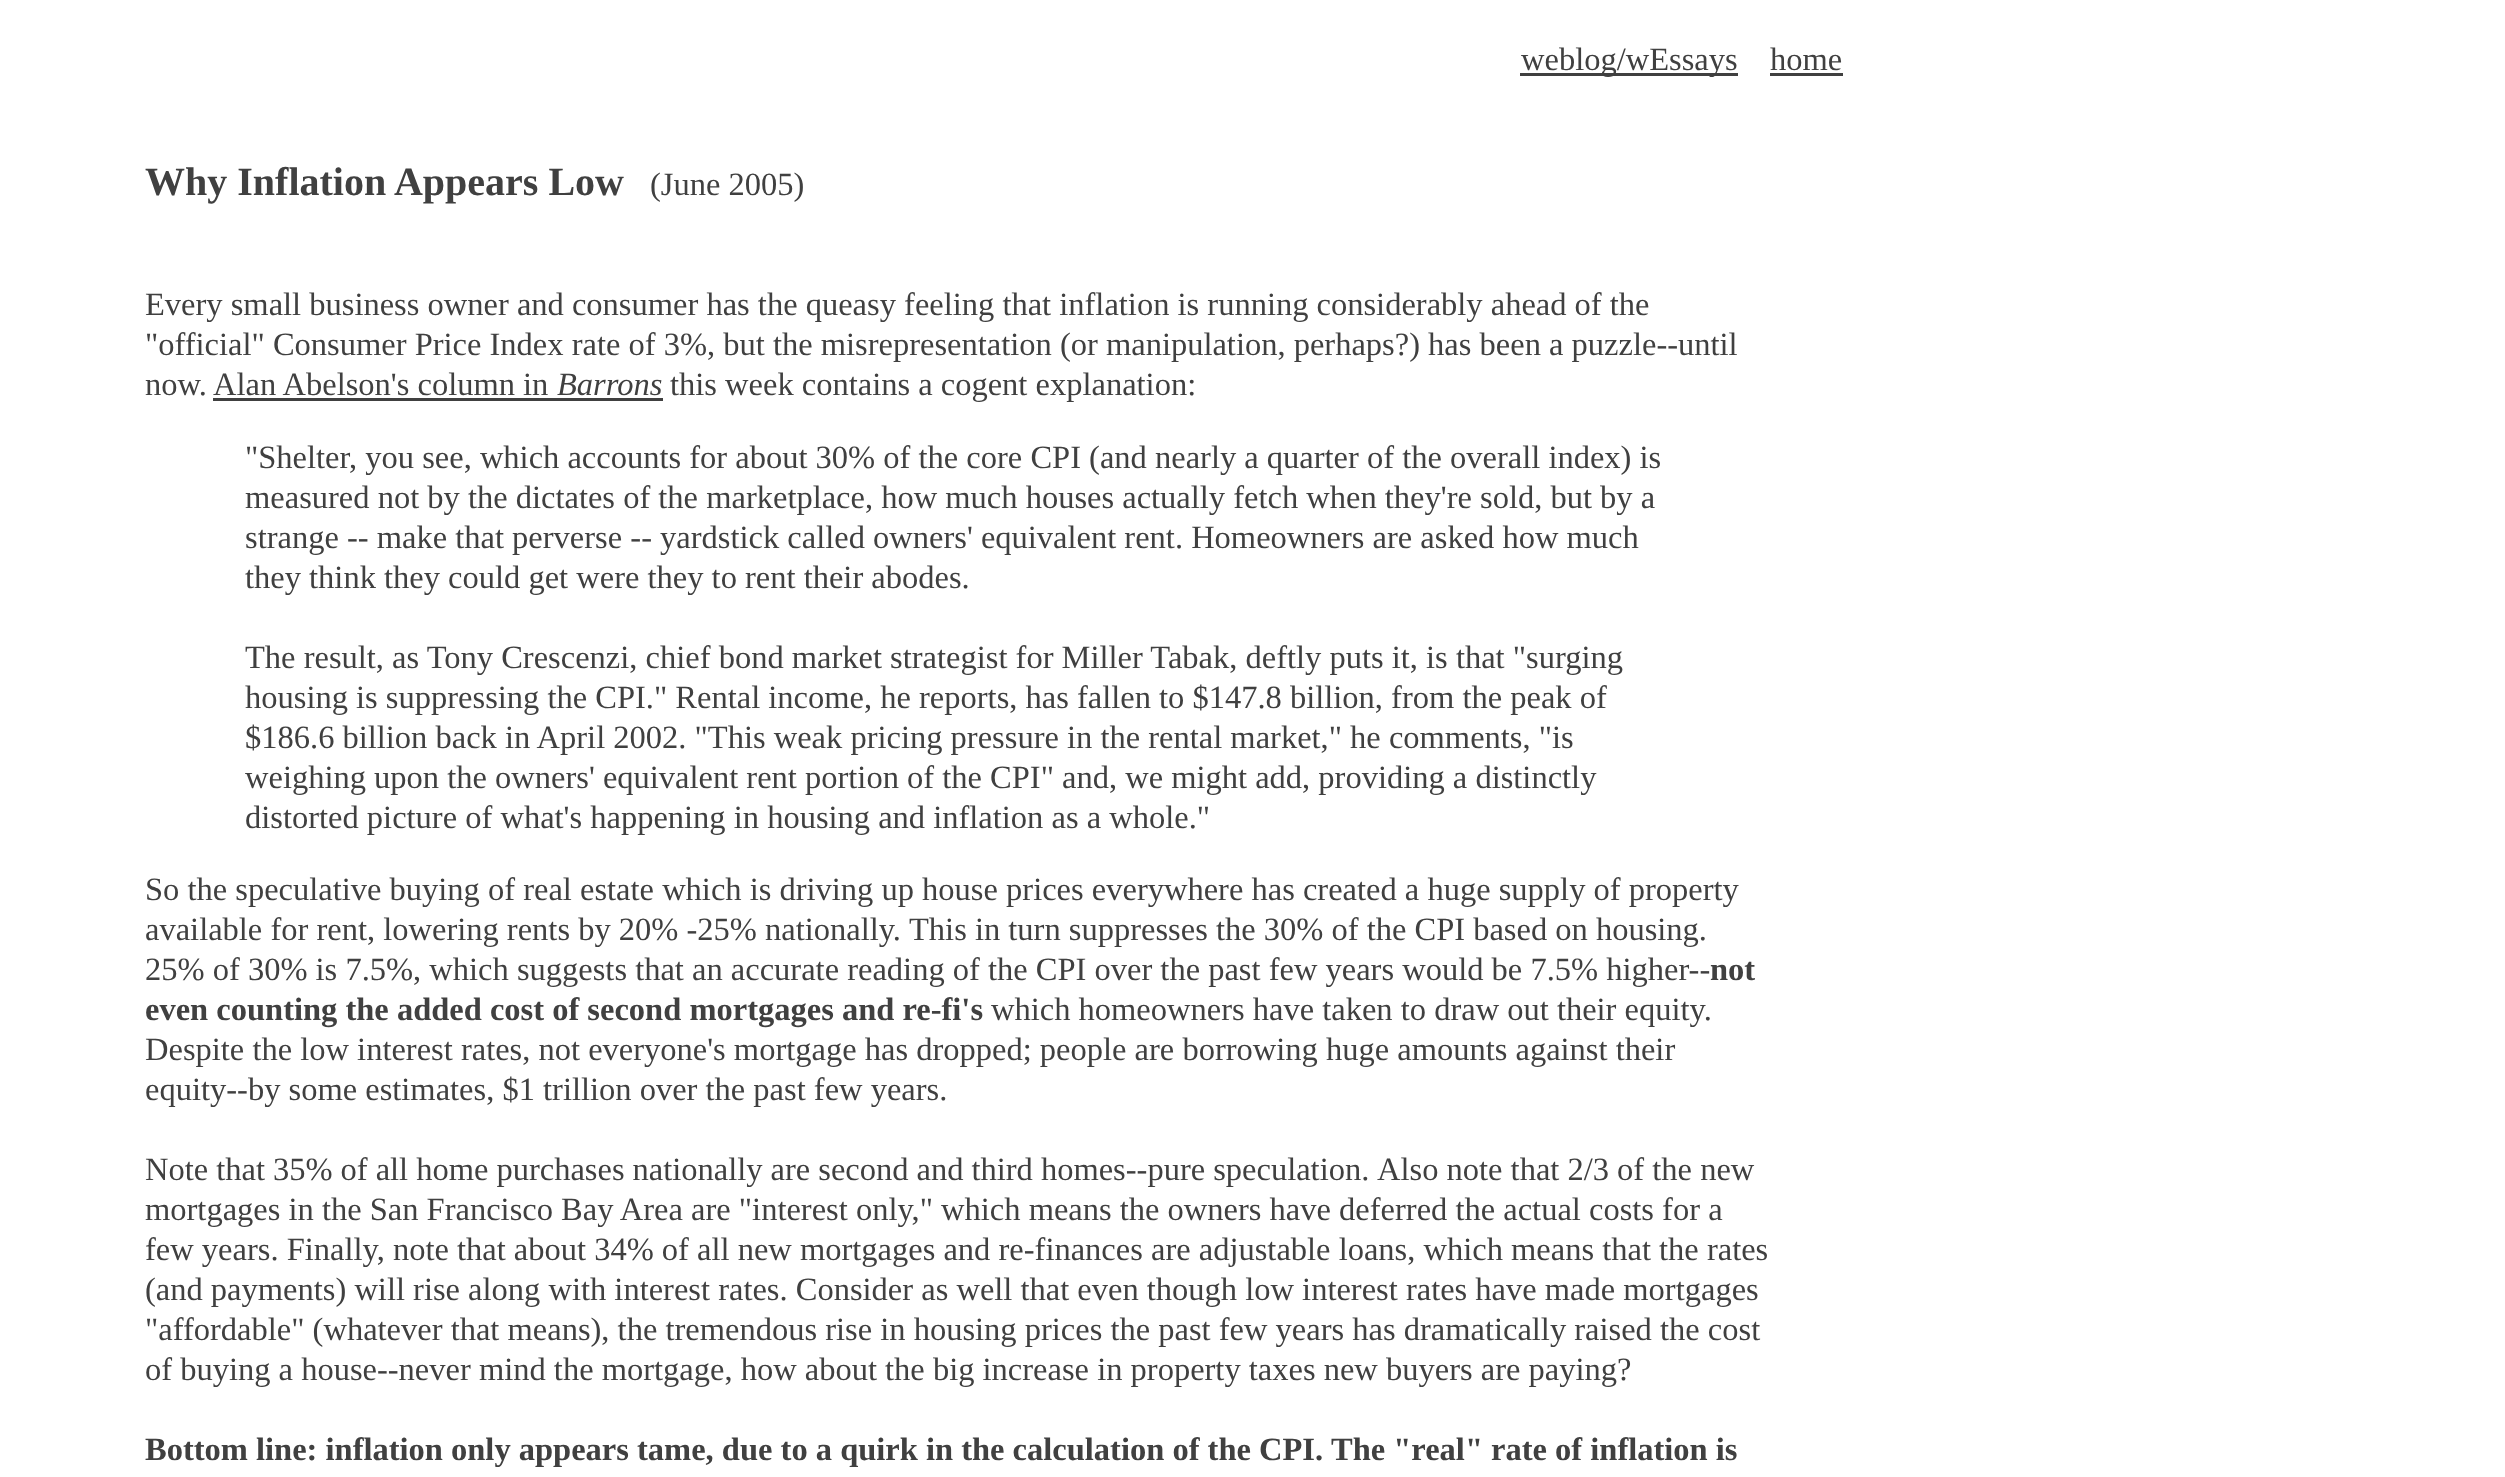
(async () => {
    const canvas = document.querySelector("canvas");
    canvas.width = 2505;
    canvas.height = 1477;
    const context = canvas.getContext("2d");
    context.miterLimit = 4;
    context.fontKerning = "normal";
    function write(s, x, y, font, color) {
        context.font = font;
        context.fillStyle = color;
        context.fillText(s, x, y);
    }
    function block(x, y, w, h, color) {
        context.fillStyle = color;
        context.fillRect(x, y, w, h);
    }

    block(0, 0, 2505, 1477, "rgb(255, 255, 255)");
    block(1520, 73, 218, 3, "rgb(64, 64, 64)");
    write("weblog/wEssays", 1521, 70, "32.5px Liberation Serif", "rgb(64, 64, 64)");
    write("home", 1770, 70, "32.5px Liberation Serif", "rgb(64, 64, 64)");
    block(1770, 73, 73, 3, "rgb(64, 64, 64)");
    write("Why Inflation Appears Low", 145, 195, "bold 40px Liberation Serif", "rgb(64, 64, 64)");
    write("(June 2005)", 650, 195, "32.5px Liberation Serif", "rgb(64, 64, 64)");
    write("Every small business owner and consumer has the queasy feeling that inflation is running considerably ahead of the", 145, 315, "32.5px Liberation Serif", "rgb(64, 64, 64)");
    write("\"official\" Consumer Price Index rate of 3%, but the misrepresentation (or manipulation, perhaps?) has been a puzzle--until", 145, 355, "32.5px Liberation Serif", "rgb(64, 64, 64)");
    write("now.", 145, 395, "32.5px Liberation Serif", "rgb(64, 64, 64)");
    write("Alan Abelson's column in", 213, 395, "32.5px Liberation Serif", "rgb(64, 64, 64)");
    write("Barrons", 557, 395, "italic 32.5px Liberation Serif", "rgb(64, 64, 64)");
    block(213, 398, 450, 3, "rgb(64, 64, 64)");
    write("this week contains a cogent explanation:", 670, 395, "32.5px Liberation Serif", "rgb(64, 64, 64)");
    write("\"Shelter, you see, which accounts for about 30% of the core CPI (and nearly a quarter of the overall index) is", 245, 468, "32.5px Liberation Serif", "rgb(64, 64, 64)");
    write("measured not by the dictates of the marketplace, how much houses actually fetch when they're sold, but by a", 245, 508, "32.5px Liberation Serif", "rgb(64, 64, 64)");
    write("strange -- make that perverse -- yardstick called owners' equivalent rent. Homeowners are asked how much", 245, 548, "32.5px Liberation Serif", "rgb(64, 64, 64)");
    write("they think they could get were they to rent their abodes.", 245, 588, "32.5px Liberation Serif", "rgb(64, 64, 64)");
    write("The result, as Tony Crescenzi, chief bond market strategist for Miller Tabak, deftly puts it, is that \"surging", 245, 668, "32.5px Liberation Serif", "rgb(64, 64, 64)");
    write("housing is suppressing the CPI.\" Rental income, he reports, has fallen to $147.8 billion, from the peak of", 245, 708, "32.5px Liberation Serif", "rgb(64, 64, 64)");
    write("$186.6 billion back in April 2002. \"This weak pricing pressure in the rental market,\" he comments, \"is", 245, 748, "32.5px Liberation Serif", "rgb(64, 64, 64)");
    write("weighing upon the owners' equivalent rent portion of the CPI\" and, we might add, providing a distinctly", 245, 788, "32.5px Liberation Serif", "rgb(64, 64, 64)");
    write("distorted picture of what's happening in housing and inflation as a whole.\"", 245, 828, "32.5px Liberation Serif", "rgb(64, 64, 64)");
    write("So the speculative buying of real estate which is driving up house prices everywhere has created a huge supply of property", 145, 900, "32.5px Liberation Serif", "rgb(64, 64, 64)");
    write("available for rent, lowering rents by 20% -25% nationally.", 145, 940, "32.5px Liberation Serif", "rgb(64, 64, 64)");
    write("This in turn suppresses the 30% of the CPI based on housing.", 909, 940, "32.5px Liberation Serif", "rgb(64, 64, 64)");
    write("25% of 30% is 7.5%, which suggests that an accurate reading of the CPI over the past few years would be 7.5% higher--", 145, 980, "32.5px Liberation Serif", "rgb(64, 64, 64)");
    write("not", 1710, 980, "bold 32.5px Liberation Serif", "rgb(64, 64, 64)");
    write("even counting the added cost of second mortgages and re-fi's", 145, 1020, "bold 32.5px Liberation Serif", "rgb(64, 64, 64)");
    write("which homeowners have taken to draw out their equity.", 991, 1020, "32.5px Liberation Serif", "rgb(64, 64, 64)");
    write("Despite the low interest rates, not everyone's mortgage has dropped; people are borrowing huge amounts against their", 145, 1060, "32.5px Liberation Serif", "rgb(64, 64, 64)");
    write("equity--by some estimates, $1 trillion over the past few years.", 145, 1100, "32.5px Liberation Serif", "rgb(64, 64, 64)");
    context.wordSpacing = "-0.1px";
    write("Note that 35% of all home purchases nationally are second and third homes--pure speculation.", 145, 1180, "32.5px Liberation Serif", "rgb(64, 64, 64)");
    context.wordSpacing = "0px";
    write("Also note that 2/3 of the new", 1377, 1180, "32.5px Liberation Serif", "rgb(64, 64, 64)");
    write("mortgages in the San Francisco Bay Area are \"interest only,\" which means the owners have deferred the actual costs for a", 145, 1220, "32.5px Liberation Serif", "rgb(64, 64, 64)");
    write("few years. Finally, note that about 34% of all new mortgages and re-finances are adjustable loans, which means that the rates", 145, 1260, "32.5px Liberation Serif", "rgb(64, 64, 64)");
    write("(and payments) will rise along with interest rates. Consider as well that even though low interest rates have made mortgages", 145, 1300, "32.5px Liberation Serif", "rgb(64, 64, 64)");
    write("\"affordable\" (whatever that means), the tremendous rise in housing prices the past few years has dramatically raised the cost", 145, 1340, "32.5px Liberation Serif", "rgb(64, 64, 64)");
    write("of buying a house--never mind the mortgage, how about the big increase in property taxes new buyers are paying?", 145, 1380, "32.5px Liberation Serif", "rgb(64, 64, 64)");
    write("Bottom line: inflation only appears tame, due to a quirk in the calculation of the CPI.", 145, 1460, "bold 32.5px Liberation Serif", "rgb(64, 64, 64)");
    write("The \"real\" rate of inflation is", 1331, 1460, "bold 32.5px Liberation Serif", "rgb(64, 64, 64)");
})();
